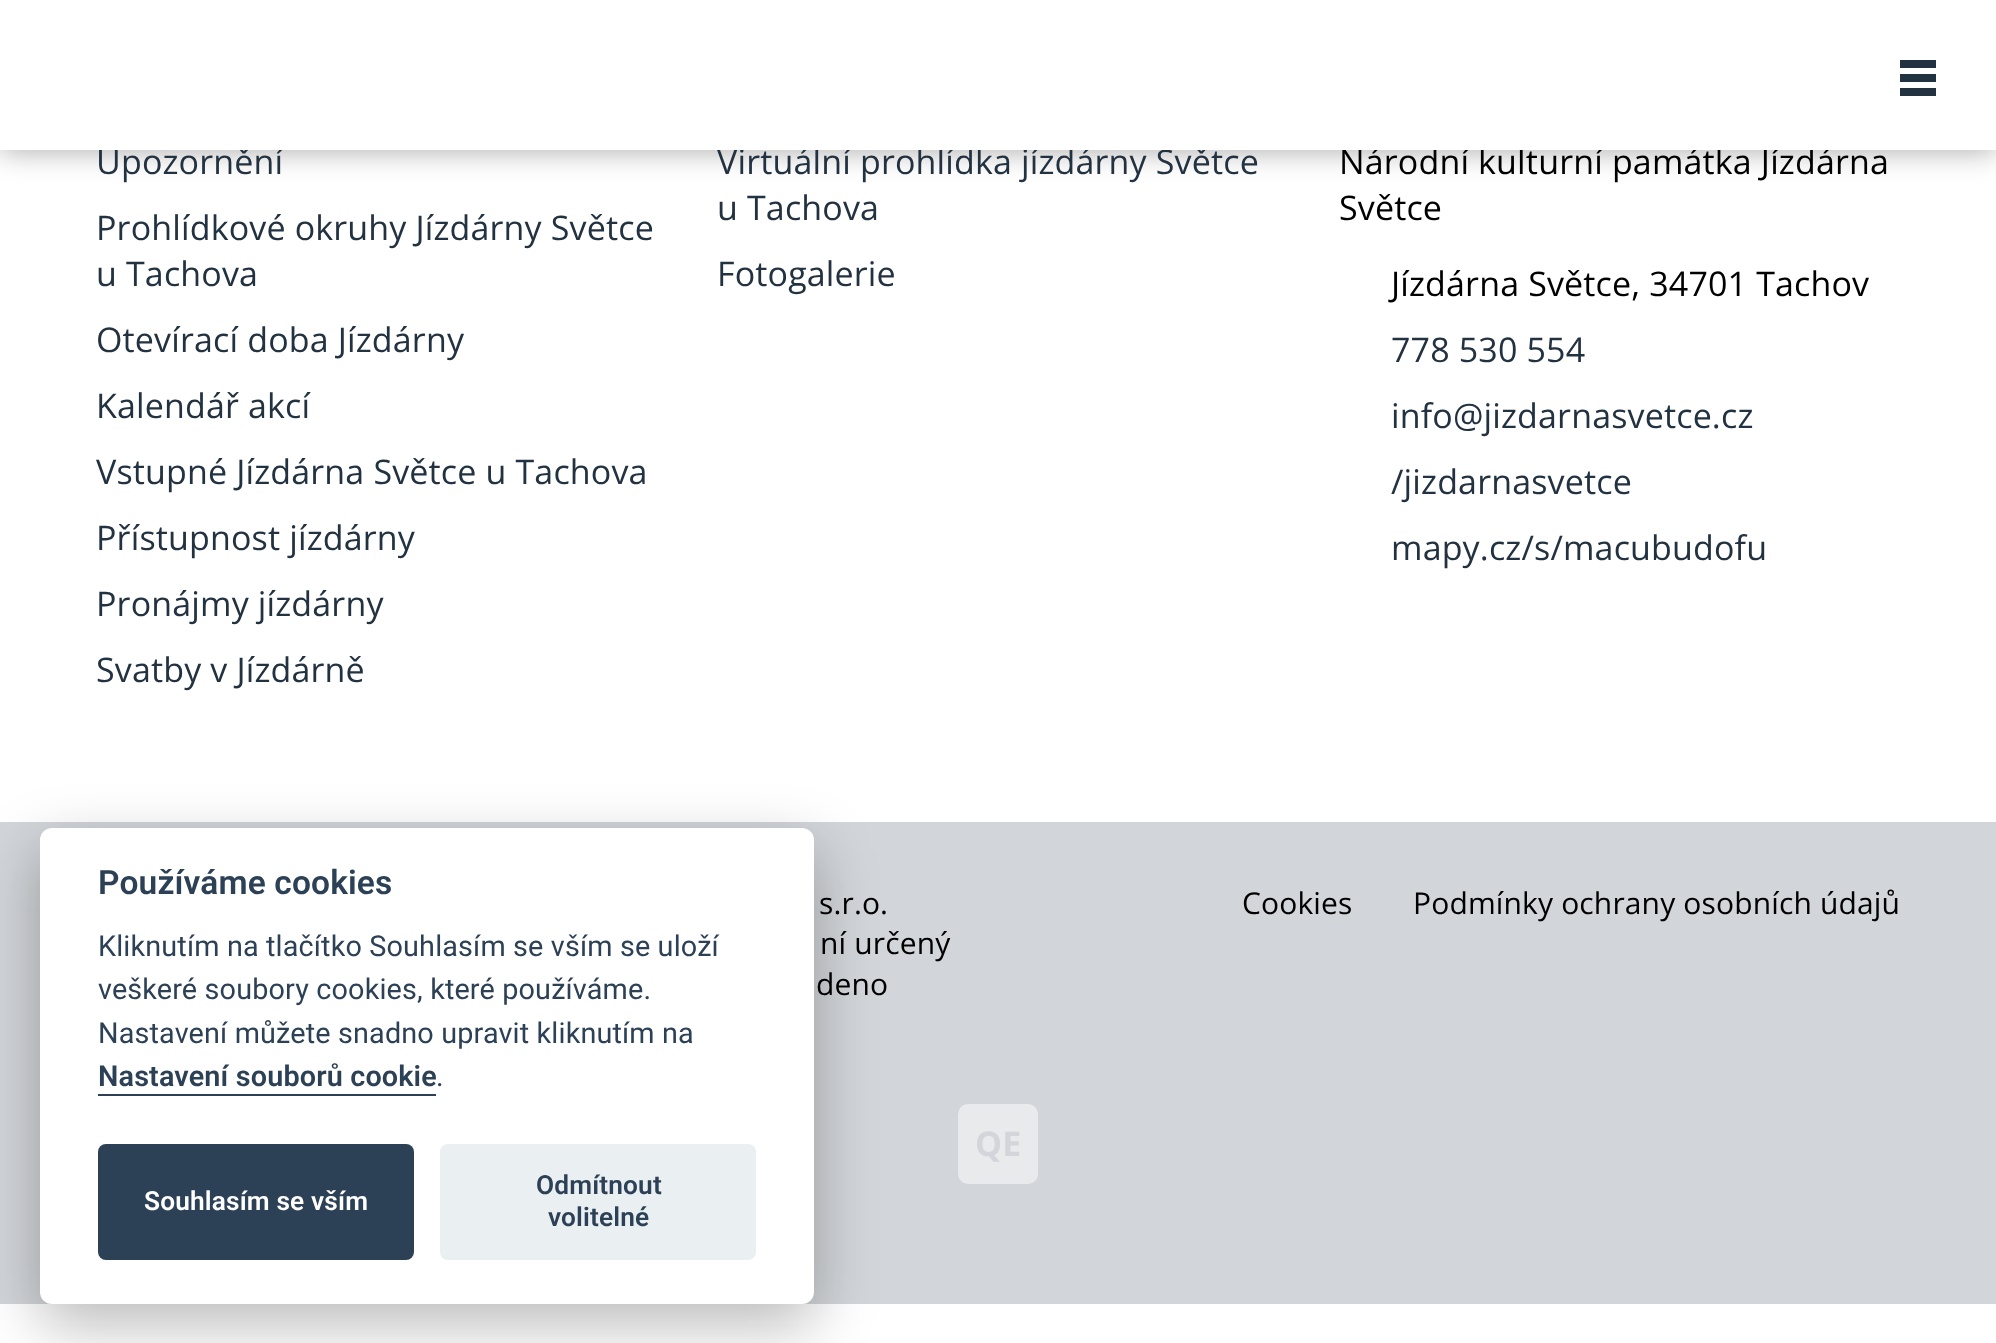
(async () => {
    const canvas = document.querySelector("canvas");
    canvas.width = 1996;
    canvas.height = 1343;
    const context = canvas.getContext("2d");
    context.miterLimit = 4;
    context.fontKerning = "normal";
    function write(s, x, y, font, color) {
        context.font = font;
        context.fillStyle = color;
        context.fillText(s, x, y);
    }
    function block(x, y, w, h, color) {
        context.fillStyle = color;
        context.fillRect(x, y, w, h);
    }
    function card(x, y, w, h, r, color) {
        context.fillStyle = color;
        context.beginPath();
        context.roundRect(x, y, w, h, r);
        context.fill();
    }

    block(0, 0, 1996, 1343, "rgb(255, 255, 255)");
    context.fillStyle = "rgba(0, 0, 0, 0.35)";
    context.filter = "blur(15px)";
    context.beginPath();
    context.rect(0, 0, 1996, 150);
    context.fill();
    context.filter = "none";
    context.letterSpacing = "0.15px";
    write("Upozornění", 96, 174, "34px Open Sans", "rgb(35, 50, 64)");
    write("Virtuální prohlídka jízdárny Světce", 717, 174, "34px Open Sans", "rgb(35, 50, 64)");
    write("Národní kulturní památka Jízdárna", 1339, 174, "34px Open Sans", "rgb(0, 0, 0)");
    block(0, 0, 1996, 150, "rgb(255, 255, 255)");
    block(1900, 60, 36, 8, "rgb(35, 50, 64)");
    block(1900, 74, 36, 8, "rgb(35, 50, 64)");
    block(1900, 88, 36, 8, "rgb(35, 50, 64)");
    write("Prohlídkové okruhy Jízdárny Světce", 96, 240, "34px Open Sans", "rgb(35, 50, 64)");
    write("u Tachova", 96, 286, "34px Open Sans", "rgb(35, 50, 64)");
    write("Otevírací doba Jízdárny", 96, 352, "34px Open Sans", "rgb(35, 50, 64)");
    write("Kalendář akcí", 96, 418, "34px Open Sans", "rgb(35, 50, 64)");
    write("Vstupné Jízdárna Světce u Tachova", 96, 484, "34px Open Sans", "rgb(35, 50, 64)");
    write("Přístupnost jízdárny", 96, 550, "34px Open Sans", "rgb(35, 50, 64)");
    write("Pronájmy jízdárny", 96, 616, "34px Open Sans", "rgb(35, 50, 64)");
    write("Svatby v Jízdárně", 96, 682, "34px Open Sans", "rgb(35, 50, 64)");
    write("u Tachova", 717, 220, "34px Open Sans", "rgb(35, 50, 64)");
    write("Fotogalerie", 717, 286, "34px Open Sans", "rgb(35, 50, 64)");
    write("Světce", 1339, 220, "34px Open Sans", "rgb(0, 0, 0)");
    write("Jízdárna Světce, 34701 Tachov", 1391, 296, "34px Open Sans", "rgb(0, 0, 0)");
    write("778 530 554", 1391, 362, "34px Open Sans", "rgb(35, 50, 64)");
    write("info@jizdarnasvetce.cz", 1391, 428, "34px Open Sans", "rgb(35, 50, 64)");
    write("/jizdarnasvetce", 1391, 494, "34px Open Sans", "rgb(35, 50, 64)");
    write("mapy.cz/s/macubudofu", 1391, 560, "34px Open Sans", "rgb(35, 50, 64)");
    block(0, 822, 1996, 482, "rgb(210, 213, 217)");
    write("s.r.o.", 819, 914, "30px Open Sans", "rgb(0, 0, 0)");
    write("ní určený", 820, 954, "30px Open Sans", "rgb(0, 0, 0)");
    write("deno", 816, 995, "30px Open Sans", "rgb(0, 0, 0)");
    write("Cookies", 1242, 914, "30px Open Sans", "rgb(0, 0, 0)");
    write("Podmínky ochrany osobních údajů", 1413, 914, "30px Open Sans", "rgb(0, 0, 0)");
    card(958, 1104, 80, 80, 10, "rgb(233, 234, 236)");
    write("QE", 975, 1156, "bold 34px Open Sans", "rgb(210, 213, 217)");
    context.fillStyle = "rgba(2, 2, 3, 0.28)";
    context.filter = "blur(30px)";
    context.beginPath();
    context.roundRect(40, 848, 774, 476, 12);
    context.fill();
    context.filter = "none";
    card(40, 828, 774, 476, 12, "rgb(255, 255, 255)");
    write("Používáme cookies", 98, 894, "600 33.5px Roboto", "rgb(45, 65, 86)");
    write("Kliknutím na tlačítko Souhlasím se vším se uloží", 98, 956, "28.8px Roboto", "rgb(45, 65, 86)");
    write("veškeré soubory cookies, které používáme.", 98, 999, "28.8px Roboto", "rgb(45, 65, 86)");
    write("Nastavení můžete snadno upravit kliknutím na", 98, 1043, "28.8px Roboto", "rgb(45, 65, 86)");
    write("Nastavení souborů cookie", 98, 1086, "600 28.8px Roboto", "rgb(45, 65, 86)");
    block(98, 1094, 338, 2, "rgb(45, 65, 86)");
    write(".", 436, 1086, "28.8px Roboto", "rgb(45, 65, 86)");
    card(98, 1144, 316, 116, 8, "rgb(45, 65, 86)");
    write("Souhlasím se vším", 144, 1210, "600 26.25px Roboto", "rgb(255, 255, 255)");
    card(440, 1144, 316, 116, 8, "rgb(234, 239, 242)");
    write("Odmítnout", 536, 1194, "600 26.25px Roboto", "rgb(45, 65, 86)");
    write("volitelné", 548, 1226, "600 26.25px Roboto", "rgb(45, 65, 86)");
})();
